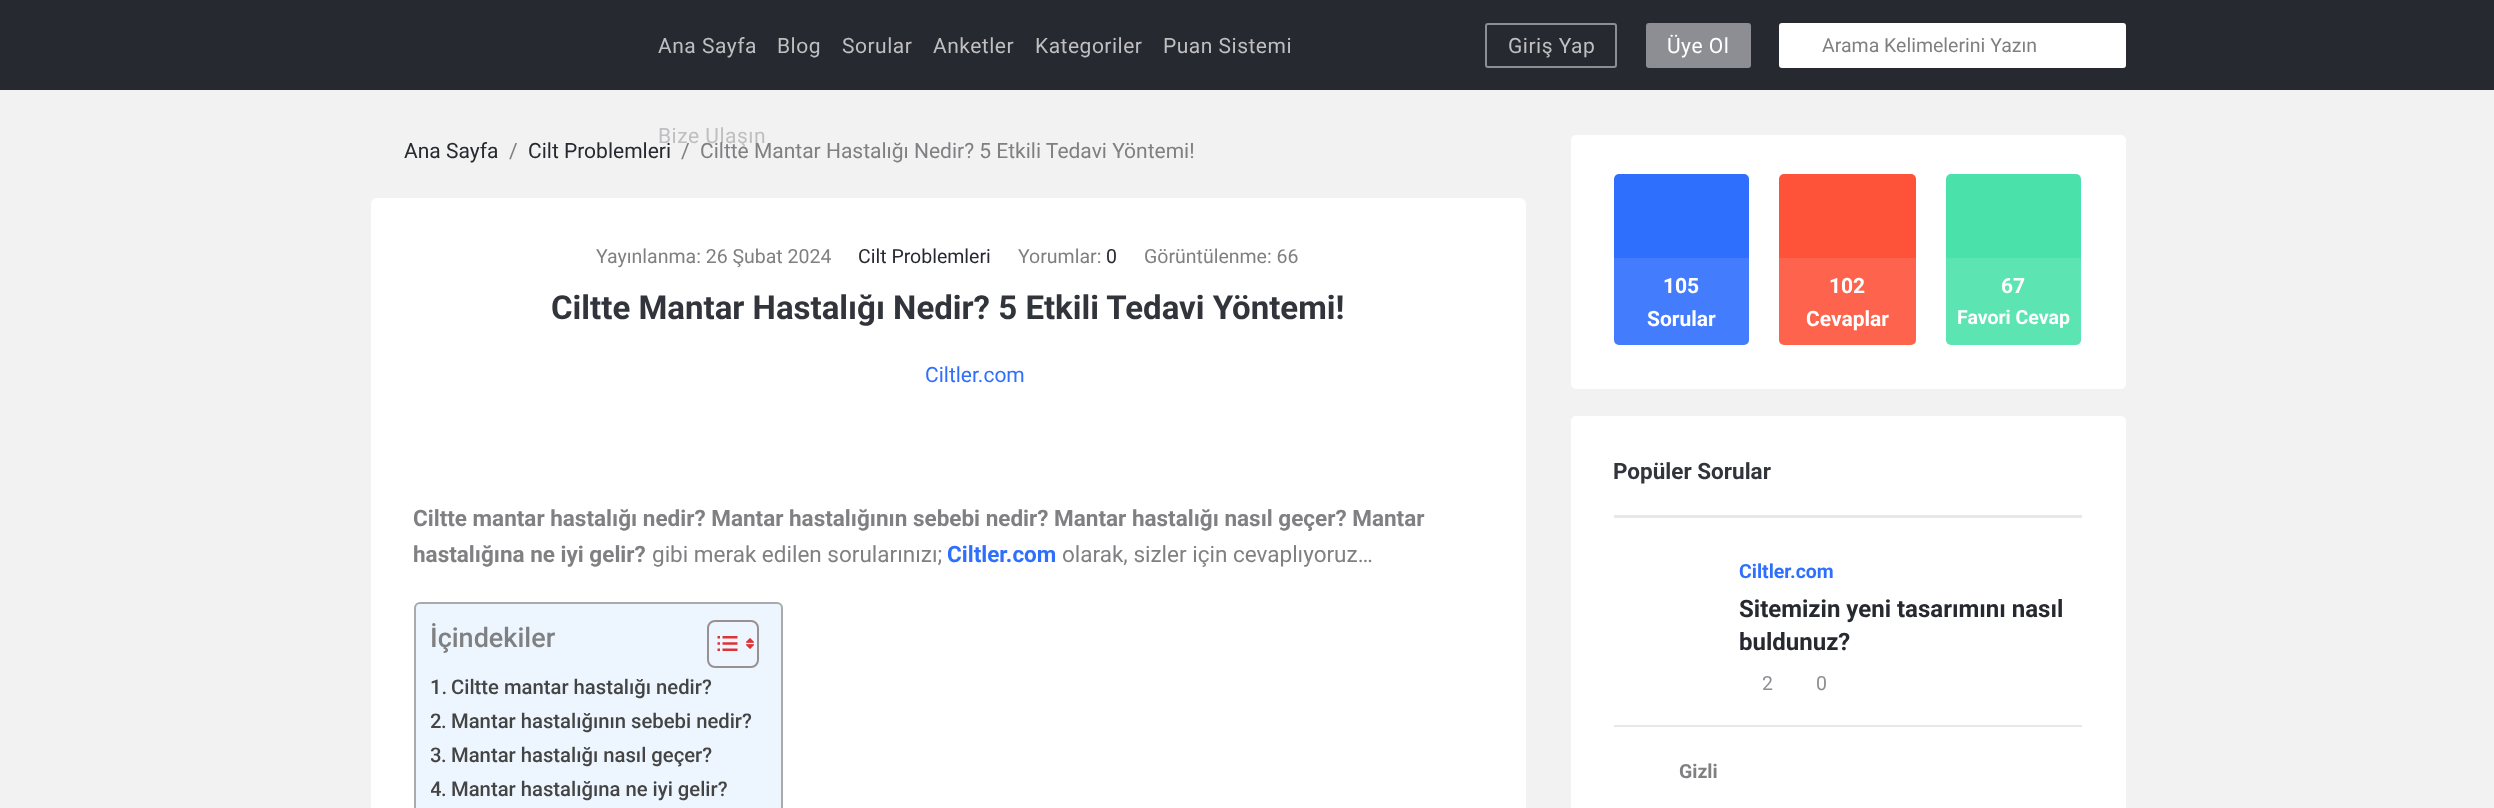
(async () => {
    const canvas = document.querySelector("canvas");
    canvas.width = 2494;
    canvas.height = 808;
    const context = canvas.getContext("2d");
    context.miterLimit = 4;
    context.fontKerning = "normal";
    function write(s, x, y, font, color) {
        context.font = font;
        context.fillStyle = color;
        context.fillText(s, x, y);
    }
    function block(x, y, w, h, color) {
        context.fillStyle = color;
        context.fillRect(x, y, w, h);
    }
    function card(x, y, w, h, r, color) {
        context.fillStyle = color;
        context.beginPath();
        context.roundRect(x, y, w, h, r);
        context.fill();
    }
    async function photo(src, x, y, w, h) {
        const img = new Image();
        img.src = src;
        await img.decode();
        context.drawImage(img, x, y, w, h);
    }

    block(0, 0, 2494, 808, "rgb(242, 242, 242)");
    block(0, 0, 2494, 90, "rgb(39, 41, 48)");
    context.letterSpacing = "0.5px";
    write("Ana Sayfa", 658, 53, "21px Roboto", "rgb(191, 191, 193)");
    write("Blog", 777, 53, "21px Roboto", "rgb(191, 191, 193)");
    write("Sorular", 842, 53, "21px Roboto", "rgb(191, 191, 193)");
    write("Anketler", 933, 53, "21px Roboto", "rgb(191, 191, 193)");
    write("Kategoriler", 1035, 53, "21px Roboto", "rgb(191, 191, 193)");
    write("Puan Sistemi", 1163, 53, "21px Roboto", "rgb(191, 191, 193)");
    write("Bize Ulaşın", 658, 143, "21px Roboto", "rgb(191, 191, 193)");
    context.beginPath();
    context.roundRect(1486, 24, 130, 43, 2);
    context.strokeStyle = "rgb(140, 142, 147)";
    context.lineWidth = 2;
    context.stroke();
    write("Giriş Yap", 1508, 53, "21px Roboto", "rgb(191, 191, 193)");
    card(1646, 23, 105, 45, 3, "rgb(140, 142, 147)");
    write("Üye Ol", 1667, 53, "21px Roboto", "rgb(255, 255, 255)");
    card(1779, 23, 347, 45, 3, "rgb(255, 255, 255)");
    context.letterSpacing = "0px";
    write("Arama Kelimelerini Yazın", 1822, 52, "19.5px Roboto", "rgb(128, 128, 131)");
    write("Ana Sayfa", 404, 158, "21px Roboto", "rgb(39, 41, 48)");
    write("/", 509, 158, "21px Roboto", "rgb(128, 128, 131)");
    write("Cilt Problemleri", 528, 158, "21px Roboto", "rgb(39, 41, 48)");
    write("/", 681, 158, "21px Roboto", "rgb(128, 128, 131)");
    write("Ciltte Mantar Hastalığı Nedir? 5 Etkili Tedavi Yöntemi!", 700, 158, "21px Roboto", "rgb(128, 128, 131)");
    card(371, 198, 1155, 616, 6, "rgb(255, 255, 255)");
    write("Yayınlanma: 26 Şubat 2024", 596, 263, "19.5px Roboto", "rgb(128, 128, 131)");
    write("Cilt Problemleri", 858, 263, "19.5px Roboto", "rgb(39, 41, 48)");
    write("Yorumlar:", 1018, 263, "19.5px Roboto", "rgb(128, 128, 131)");
    write("0", 1106, 263, "19.5px Roboto", "rgb(39, 41, 48)");
    write("Görüntülenme: 66", 1144, 263, "19.5px Roboto", "rgb(128, 128, 131)");
    write("Ciltte Mantar Hastalığı Nedir? 5 Etkili Tedavi Yöntemi!", 551, 319, "bold 33px Roboto", "rgb(50, 52, 59)");
    write("Ciltler.com", 925, 382, "21px Roboto", "rgb(46, 111, 253)");
    write("Ciltte mantar hastalığı nedir? Mantar hastalığının sebebi nedir? Mantar hastalığı nasıl geçer? Mantar", 413, 526, "bold 22.5px Roboto", "rgb(128, 128, 131)");
    write("hastalığına ne iyi gelir?", 413, 562, "bold 22.5px Roboto", "rgb(128, 128, 131)");
    write("gibi merak edilen sorularınızı;", 652, 562, "22.5px Roboto", "rgb(128, 128, 131)");
    write("Ciltler.com", 947, 562, "bold 22.5px Roboto", "rgb(46, 111, 253)");
    write("olarak, sizler için cevaplıyoruz…", 1062, 562, "22.5px Roboto", "rgb(128, 128, 131)");
    context.fillStyle = "rgb(237, 246, 255)";
    context.beginPath();
    context.roundRect(415, 603, 367, 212, 5);
    context.fill();
    context.strokeStyle = "rgb(170, 170, 170)";
    context.stroke();
    write("İçindekiler", 430, 647, "500 27px Roboto", "rgb(128, 128, 131)");
    context.beginPath();
    context.roundRect(708, 621, 50, 46, 7);
    context.strokeStyle = "rgb(153, 145, 145)";
    context.stroke();
    await photo("media/1.png", 717, 636, 21, 15);
    await photo("media/2.png", 746, 638, 8, 11);
    write("1.", 430, 694, "500 20.25px Roboto", "rgb(68, 68, 68)");
    write("Ciltte mantar hastalığı nedir?", 451, 694, "500 20.25px Roboto", "rgb(68, 68, 68)");
    context.save();
    context.beginPath();
    context.rect(431, 704, 321, 34);
    context.clip();
    write("2", 430, 728, "500 20.25px Roboto", "rgb(68, 68, 68)");
    context.restore();
    write(".", 441, 728, "500 20.25px Roboto", "rgb(68, 68, 68)");
    write("Mantar hastalığının sebebi nedir?", 451, 728, "500 20.25px Roboto", "rgb(68, 68, 68)");
    context.save();
    context.beginPath();
    context.rect(431, 738, 321, 35);
    context.clip();
    write("3", 430, 762, "500 20.25px Roboto", "rgb(68, 68, 68)");
    context.restore();
    write(".", 441, 762, "500 20.25px Roboto", "rgb(68, 68, 68)");
    write("Mantar hastalığı nasıl geçer?", 451, 762, "500 20.25px Roboto", "rgb(68, 68, 68)");
    context.save();
    context.beginPath();
    context.rect(431, 773, 321, 34);
    context.clip();
    write("4", 430, 796, "500 20.25px Roboto", "rgb(68, 68, 68)");
    context.restore();
    write(".", 441, 796, "500 20.25px Roboto", "rgb(68, 68, 68)");
    write("Mantar hastalığına ne iyi gelir?", 451, 796, "500 20.25px Roboto", "rgb(68, 68, 68)");
    card(1571, 135, 555, 254, 5, "rgb(255, 255, 255)");
    card(1614, 174, 135, 171, 5, "rgb(46, 111, 253)");
    context.fillStyle = "rgba(255, 255, 255, 0.1)";
    context.beginPath();
    context.roundRect(1614, 258, 135, 87, [0, 0, 5, 5]);
    context.fill();
    write("105", 1663, 293, "bold 21px Roboto", "rgb(255, 255, 255)");
    write("Sorular", 1647, 326, "bold 21px Roboto", "rgb(255, 255, 255)");
    card(1779, 174, 137, 171, 5, "rgb(254, 83, 57)");
    context.fillStyle = "rgba(255, 255, 255, 0.1)";
    context.beginPath();
    context.roundRect(1779, 258, 137, 87, [0, 0, 5, 5]);
    context.fill();
    write("102", 1829, 293, "bold 21px Roboto", "rgb(255, 255, 255)");
    write("Cevaplar", 1806, 326, "bold 21px Roboto", "rgb(255, 255, 255)");
    card(1946, 174, 135, 171, 5, "rgb(75, 225, 171)");
    context.fillStyle = "rgba(255, 255, 255, 0.1)";
    context.beginPath();
    context.roundRect(1946, 258, 135, 87, [0, 0, 5, 5]);
    context.fill();
    write("67", 2001, 293, "bold 21px Roboto", "rgb(255, 255, 255)");
    write("Favori Cevap", 1957, 324, "bold 19.5px Roboto", "rgb(255, 255, 255)");
    card(1571, 416, 555, 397, 5, "rgb(255, 255, 255)");
    block(1614, 515, 468, 3, "rgb(231, 233, 233)");
    write("Popüler Sorular", 1613, 479, "bold 22.5px Roboto", "rgb(50, 52, 59)");
    block(1614, 725, 468, 2, "rgb(231, 233, 233)");
    write("Ciltler.com", 1739, 578, "bold 19.5px Roboto", "rgb(46, 111, 253)");
    write("Sitemizin yeni tasarımını nasıl", 1739, 617, "bold 24px Roboto", "rgb(39, 41, 48)");
    write("buldunuz?", 1739, 650, "bold 24px Roboto", "rgb(39, 41, 48)");
    write("2", 1762, 690, "19.5px Roboto", "rgb(140, 142, 147)");
    write("0", 1816, 690, "19.5px Roboto", "rgb(140, 142, 147)");
    write("Gizli", 1679, 778, "bold 19.5px Roboto", "rgb(128, 128, 131)");
})();
